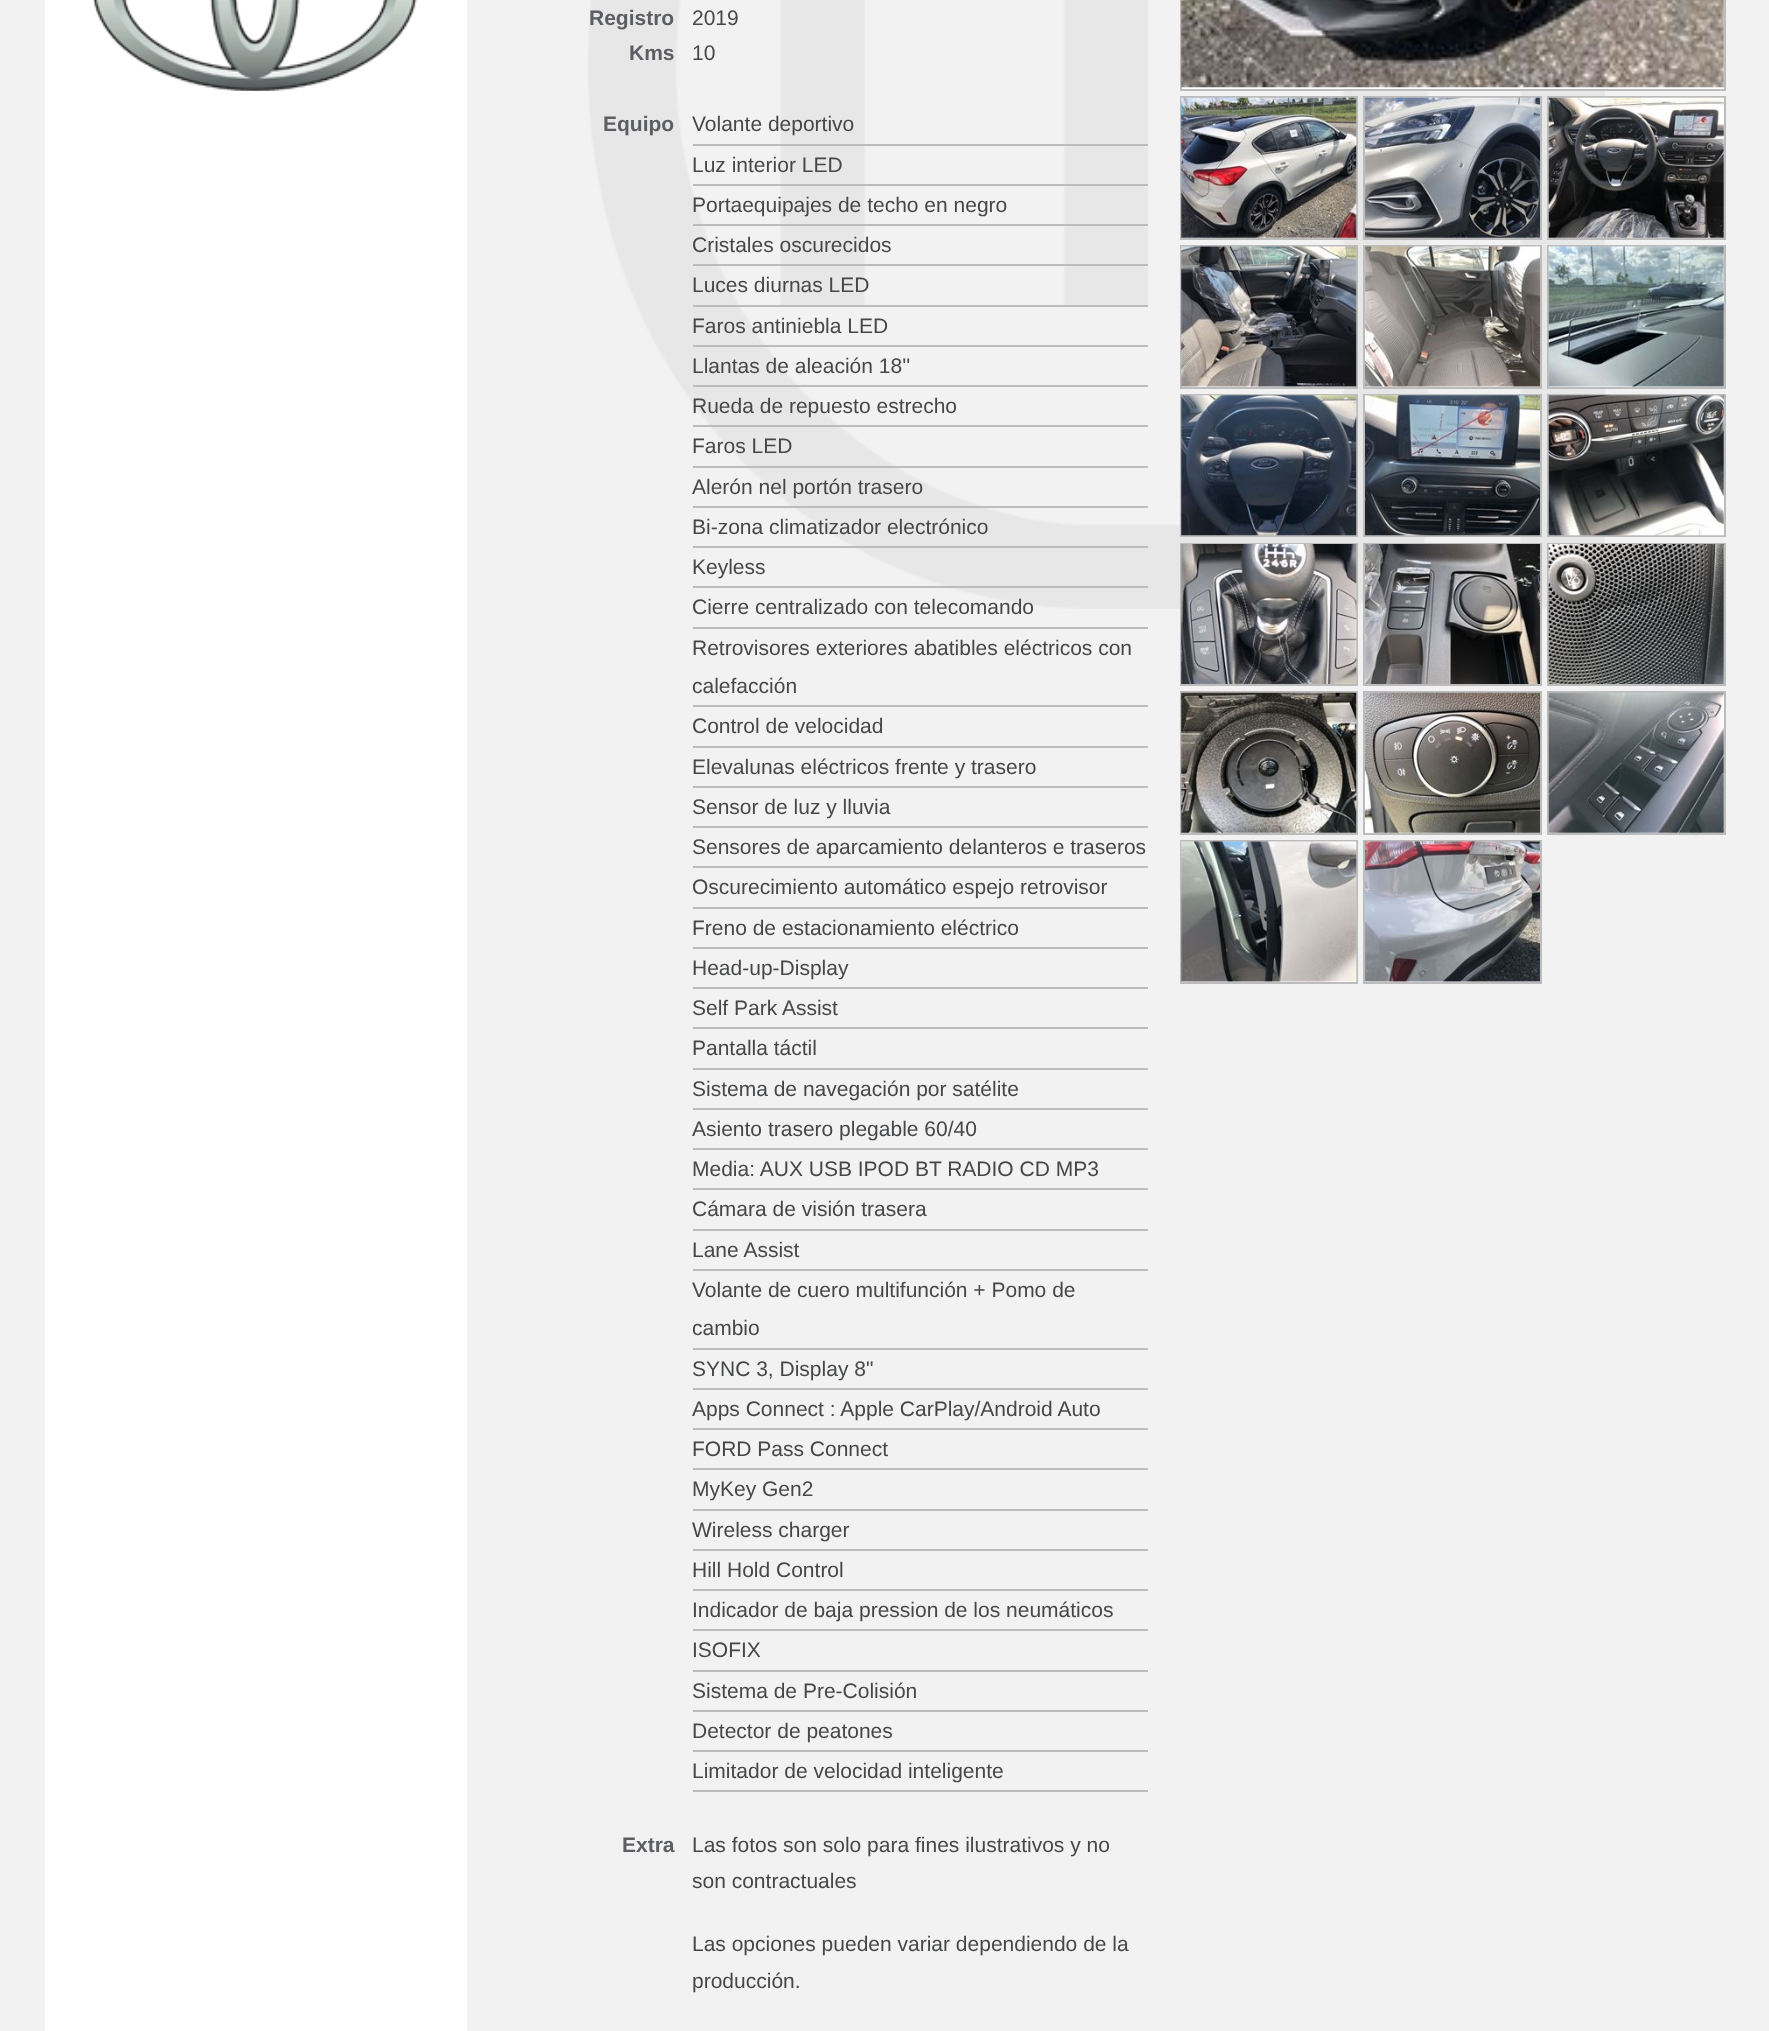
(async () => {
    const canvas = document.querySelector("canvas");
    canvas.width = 1769;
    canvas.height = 2031;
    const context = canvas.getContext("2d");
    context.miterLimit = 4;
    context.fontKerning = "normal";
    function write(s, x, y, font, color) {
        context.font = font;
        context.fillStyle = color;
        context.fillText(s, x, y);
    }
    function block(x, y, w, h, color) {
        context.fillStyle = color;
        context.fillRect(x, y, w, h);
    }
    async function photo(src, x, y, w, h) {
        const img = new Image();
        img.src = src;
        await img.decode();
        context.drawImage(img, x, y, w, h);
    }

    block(0, 0, 1769, 2031, "rgb(242, 242, 242)");
    await photo("media/1.png", 588, 0, 1017, 609);
    block(45, 0, 422, 2031, "rgb(255, 255, 255)");
    await photo("media/2.png", 92, 0, 325, 91);
    write("Registro", 589, 25, "bold 21px Liberation Sans", "rgb(93, 94, 98)");
    write("2019", 692, 25, "21px Liberation Sans", "rgb(70, 71, 73)");
    write("Kms", 629, 60, "bold 21px Liberation Sans", "rgb(93, 94, 98)");
    write("10", 692, 60, "21px Liberation Sans", "rgb(70, 71, 73)");
    write("Equipo", 603, 131, "bold 21px Liberation Sans", "rgb(93, 94, 98)");
    block(693, 144, 455, 2, "rgb(188, 188, 188)");
    write("Volante deportivo", 692, 131, "21px Liberation Sans", "rgb(70, 71, 73)");
    block(693, 184, 455, 2, "rgb(188, 188, 188)");
    write("Luz interior LED", 692, 172, "21px Liberation Sans", "rgb(70, 71, 73)");
    block(693, 224, 455, 2, "rgb(188, 188, 188)");
    write("Portaequipajes de techo en negro", 692, 212, "21px Liberation Sans", "rgb(70, 71, 73)");
    block(693, 264, 455, 2, "rgb(188, 188, 188)");
    write("Cristales oscurecidos", 692, 252, "21px Liberation Sans", "rgb(70, 71, 73)");
    block(693, 305, 455, 2, "rgb(188, 188, 188)");
    write("Luces diurnas LED", 692, 292, "21px Liberation Sans", "rgb(70, 71, 73)");
    block(693, 345, 455, 2, "rgb(188, 188, 188)");
    write("Faros antiniebla LED", 692, 333, "21px Liberation Sans", "rgb(70, 71, 73)");
    block(693, 385, 455, 2, "rgb(188, 188, 188)");
    write("Llantas de aleación 18''", 692, 373, "21px Liberation Sans", "rgb(70, 71, 73)");
    block(693, 425, 455, 2, "rgb(188, 188, 188)");
    write("Rueda de repuesto estrecho", 692, 413, "21px Liberation Sans", "rgb(70, 71, 73)");
    block(693, 466, 455, 2, "rgb(188, 188, 188)");
    write("Faros LED", 692, 453, "21px Liberation Sans", "rgb(70, 71, 73)");
    block(693, 506, 455, 2, "rgb(188, 188, 188)");
    write("Alerón nel portón trasero", 692, 494, "21px Liberation Sans", "rgb(70, 71, 73)");
    block(693, 546, 455, 2, "rgb(188, 188, 188)");
    write("Bi-zona climatizador electrónico", 692, 534, "21px Liberation Sans", "rgb(70, 71, 73)");
    block(693, 586, 455, 2, "rgb(188, 188, 188)");
    write("Keyless", 692, 574, "21px Liberation Sans", "rgb(70, 71, 73)");
    block(693, 627, 455, 2, "rgb(188, 188, 188)");
    write("Cierre centralizado con telecomando", 692, 614, "21px Liberation Sans", "rgb(70, 71, 73)");
    block(693, 705, 455, 2, "rgb(188, 188, 188)");
    write("Retrovisores exteriores abatibles eléctricos con", 692, 655, "21px Liberation Sans", "rgb(70, 71, 73)");
    write("calefacción", 692, 693, "21px Liberation Sans", "rgb(70, 71, 73)");
    block(693, 746, 455, 2, "rgb(188, 188, 188)");
    write("Control de velocidad", 692, 733, "21px Liberation Sans", "rgb(70, 71, 73)");
    block(693, 786, 455, 2, "rgb(188, 188, 188)");
    write("Elevalunas eléctricos frente y trasero", 692, 774, "21px Liberation Sans", "rgb(70, 71, 73)");
    block(693, 826, 455, 2, "rgb(188, 188, 188)");
    write("Sensor de luz y lluvia", 692, 814, "21px Liberation Sans", "rgb(70, 71, 73)");
    block(693, 866, 455, 2, "rgb(188, 188, 188)");
    write("Sensores de aparcamiento delanteros e traseros", 692, 854, "21px Liberation Sans", "rgb(70, 71, 73)");
    block(693, 907, 455, 2, "rgb(188, 188, 188)");
    write("Oscurecimiento automático espejo retrovisor", 692, 894, "21px Liberation Sans", "rgb(70, 71, 73)");
    block(693, 947, 455, 2, "rgb(188, 188, 188)");
    write("Freno de estacionamiento eléctrico", 692, 935, "21px Liberation Sans", "rgb(70, 71, 73)");
    block(693, 987, 455, 2, "rgb(188, 188, 188)");
    write("Head-up-Display", 692, 975, "21px Liberation Sans", "rgb(70, 71, 73)");
    block(693, 1027, 455, 2, "rgb(188, 188, 188)");
    write("Self Park Assist", 692, 1015, "21px Liberation Sans", "rgb(70, 71, 73)");
    block(693, 1068, 455, 2, "rgb(188, 188, 188)");
    write("Pantalla táctil", 692, 1055, "21px Liberation Sans", "rgb(70, 71, 73)");
    block(693, 1108, 455, 2, "rgb(188, 188, 188)");
    write("Sistema de navegación por satélite", 692, 1096, "21px Liberation Sans", "rgb(70, 71, 73)");
    block(693, 1148, 455, 2, "rgb(188, 188, 188)");
    write("Asiento trasero plegable 60/40", 692, 1136, "21px Liberation Sans", "rgb(70, 71, 73)");
    block(693, 1188, 455, 2, "rgb(188, 188, 188)");
    write("Media: AUX USB IPOD BT RADIO CD MP3", 692, 1176, "21px Liberation Sans", "rgb(70, 71, 73)");
    block(693, 1229, 455, 2, "rgb(188, 188, 188)");
    write("Cámara de visión trasera", 692, 1216, "21px Liberation Sans", "rgb(70, 71, 73)");
    block(693, 1269, 455, 2, "rgb(188, 188, 188)");
    write("Lane Assist", 692, 1257, "21px Liberation Sans", "rgb(70, 71, 73)");
    block(693, 1348, 455, 2, "rgb(188, 188, 188)");
    write("Volante de cuero multifunción + Pomo de", 692, 1297, "21px Liberation Sans", "rgb(70, 71, 73)");
    write("cambio", 692, 1335, "21px Liberation Sans", "rgb(70, 71, 73)");
    block(693, 1388, 455, 2, "rgb(188, 188, 188)");
    write("SYNC 3, Display 8\"", 692, 1376, "21px Liberation Sans", "rgb(70, 71, 73)");
    block(693, 1428, 455, 2, "rgb(188, 188, 188)");
    write("Apps Connect : Apple CarPlay/Android Auto", 692, 1416, "21px Liberation Sans", "rgb(70, 71, 73)");
    block(693, 1468, 455, 2, "rgb(188, 188, 188)");
    write("FORD Pass Connect", 692, 1456, "21px Liberation Sans", "rgb(70, 71, 73)");
    block(693, 1509, 455, 2, "rgb(188, 188, 188)");
    write("MyKey Gen2", 692, 1496, "21px Liberation Sans", "rgb(70, 71, 73)");
    block(693, 1549, 455, 2, "rgb(188, 188, 188)");
    write("Wireless charger", 692, 1537, "21px Liberation Sans", "rgb(70, 71, 73)");
    block(693, 1589, 455, 2, "rgb(188, 188, 188)");
    write("Hill Hold Control", 692, 1577, "21px Liberation Sans", "rgb(70, 71, 73)");
    block(693, 1629, 455, 2, "rgb(188, 188, 188)");
    write("Indicador de baja pression de los neumáticos", 692, 1617, "21px Liberation Sans", "rgb(70, 71, 73)");
    block(693, 1670, 455, 2, "rgb(188, 188, 188)");
    write("ISOFIX", 692, 1657, "21px Liberation Sans", "rgb(70, 71, 73)");
    block(693, 1710, 455, 2, "rgb(188, 188, 188)");
    write("Sistema de Pre-Colisión", 692, 1698, "21px Liberation Sans", "rgb(70, 71, 73)");
    block(693, 1750, 455, 2, "rgb(188, 188, 188)");
    write("Detector de peatones", 692, 1738, "21px Liberation Sans", "rgb(70, 71, 73)");
    block(693, 1790, 455, 2, "rgb(188, 188, 188)");
    write("Limitador de velocidad inteligente", 692, 1778, "21px Liberation Sans", "rgb(70, 71, 73)");
    write("Extra", 622, 1852, "bold 21px Liberation Sans", "rgb(93, 94, 98)");
    write("Las fotos son solo para fines ilustrativos y no", 692, 1852, "21px Liberation Sans", "rgb(70, 71, 73)");
    write("son contractuales", 692, 1888, "21px Liberation Sans", "rgb(70, 71, 73)");
    write("Las opciones pueden variar dependiendo de la", 692, 1951, "21px Liberation Sans", "rgb(70, 71, 73)");
    write("producción.", 692, 1988, "21px Liberation Sans", "rgb(70, 71, 73)");
    context.fillStyle = "rgb(255, 255, 255)";
    context.beginPath();
    context.rect(1181, -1, 544, 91);
    context.fill();
    context.strokeStyle = "rgb(188, 188, 188)";
    context.lineWidth = 2;
    context.stroke();
    await photo("media/3.png", 1181, 0, 543, 88);
    context.strokeRect(1181, 97, 176, 142);
    await photo("media/4.png", 1181, 97, 176, 141);
    context.strokeRect(1364, 97, 177, 142);
    await photo("media/5.png", 1365, 97, 175, 141);
    context.beginPath();
    context.rect(1548, 97, 177, 142);
    context.fill();
    context.stroke();
    await photo("media/6.png", 1548, 97, 176, 141);
    block(1182, 386, 174, 1, "rgb(255, 255, 255)");
    context.strokeRect(1181, 246, 176, 142);
    await photo("media/7.png", 1181, 246, 176, 141);
    block(1365, 386, 175, 1, "rgb(255, 255, 255)");
    context.strokeRect(1364, 246, 177, 142);
    await photo("media/8.png", 1365, 246, 175, 141);
    context.beginPath();
    context.rect(1548, 246, 177, 142);
    context.fill();
    context.stroke();
    await photo("media/9.png", 1548, 246, 176, 141);
    context.strokeRect(1181, 395, 176, 141);
    await photo("media/10.png", 1181, 395, 176, 141);
    context.strokeRect(1364, 395, 177, 141);
    await photo("media/11.png", 1365, 395, 175, 141);
    context.strokeRect(1548, 395, 177, 141);
    await photo("media/12.png", 1548, 395, 176, 141);
    context.strokeRect(1181, 544, 176, 141);
    await photo("media/13.png", 1181, 544, 176, 140);
    context.strokeRect(1364, 544, 177, 141);
    await photo("media/14.png", 1365, 544, 175, 140);
    context.strokeRect(1548, 544, 177, 141);
    await photo("media/15.png", 1548, 544, 176, 140);
    context.strokeRect(1181, 692, 176, 142);
    await photo("media/16.png", 1181, 692, 176, 141);
    context.strokeRect(1364, 692, 177, 142);
    await photo("media/17.png", 1365, 692, 175, 141);
    context.beginPath();
    context.rect(1548, 692, 177, 142);
    context.fill();
    context.stroke();
    await photo("media/18.png", 1548, 692, 176, 141);
    block(1182, 981, 174, 1, "rgb(255, 255, 255)");
    context.strokeRect(1181, 841, 176, 142);
    await photo("media/19.png", 1181, 841, 176, 141);
    block(1365, 981, 175, 1, "rgb(255, 255, 255)");
    context.strokeRect(1364, 841, 177, 142);
    await photo("media/20.png", 1365, 841, 175, 141);
})();
